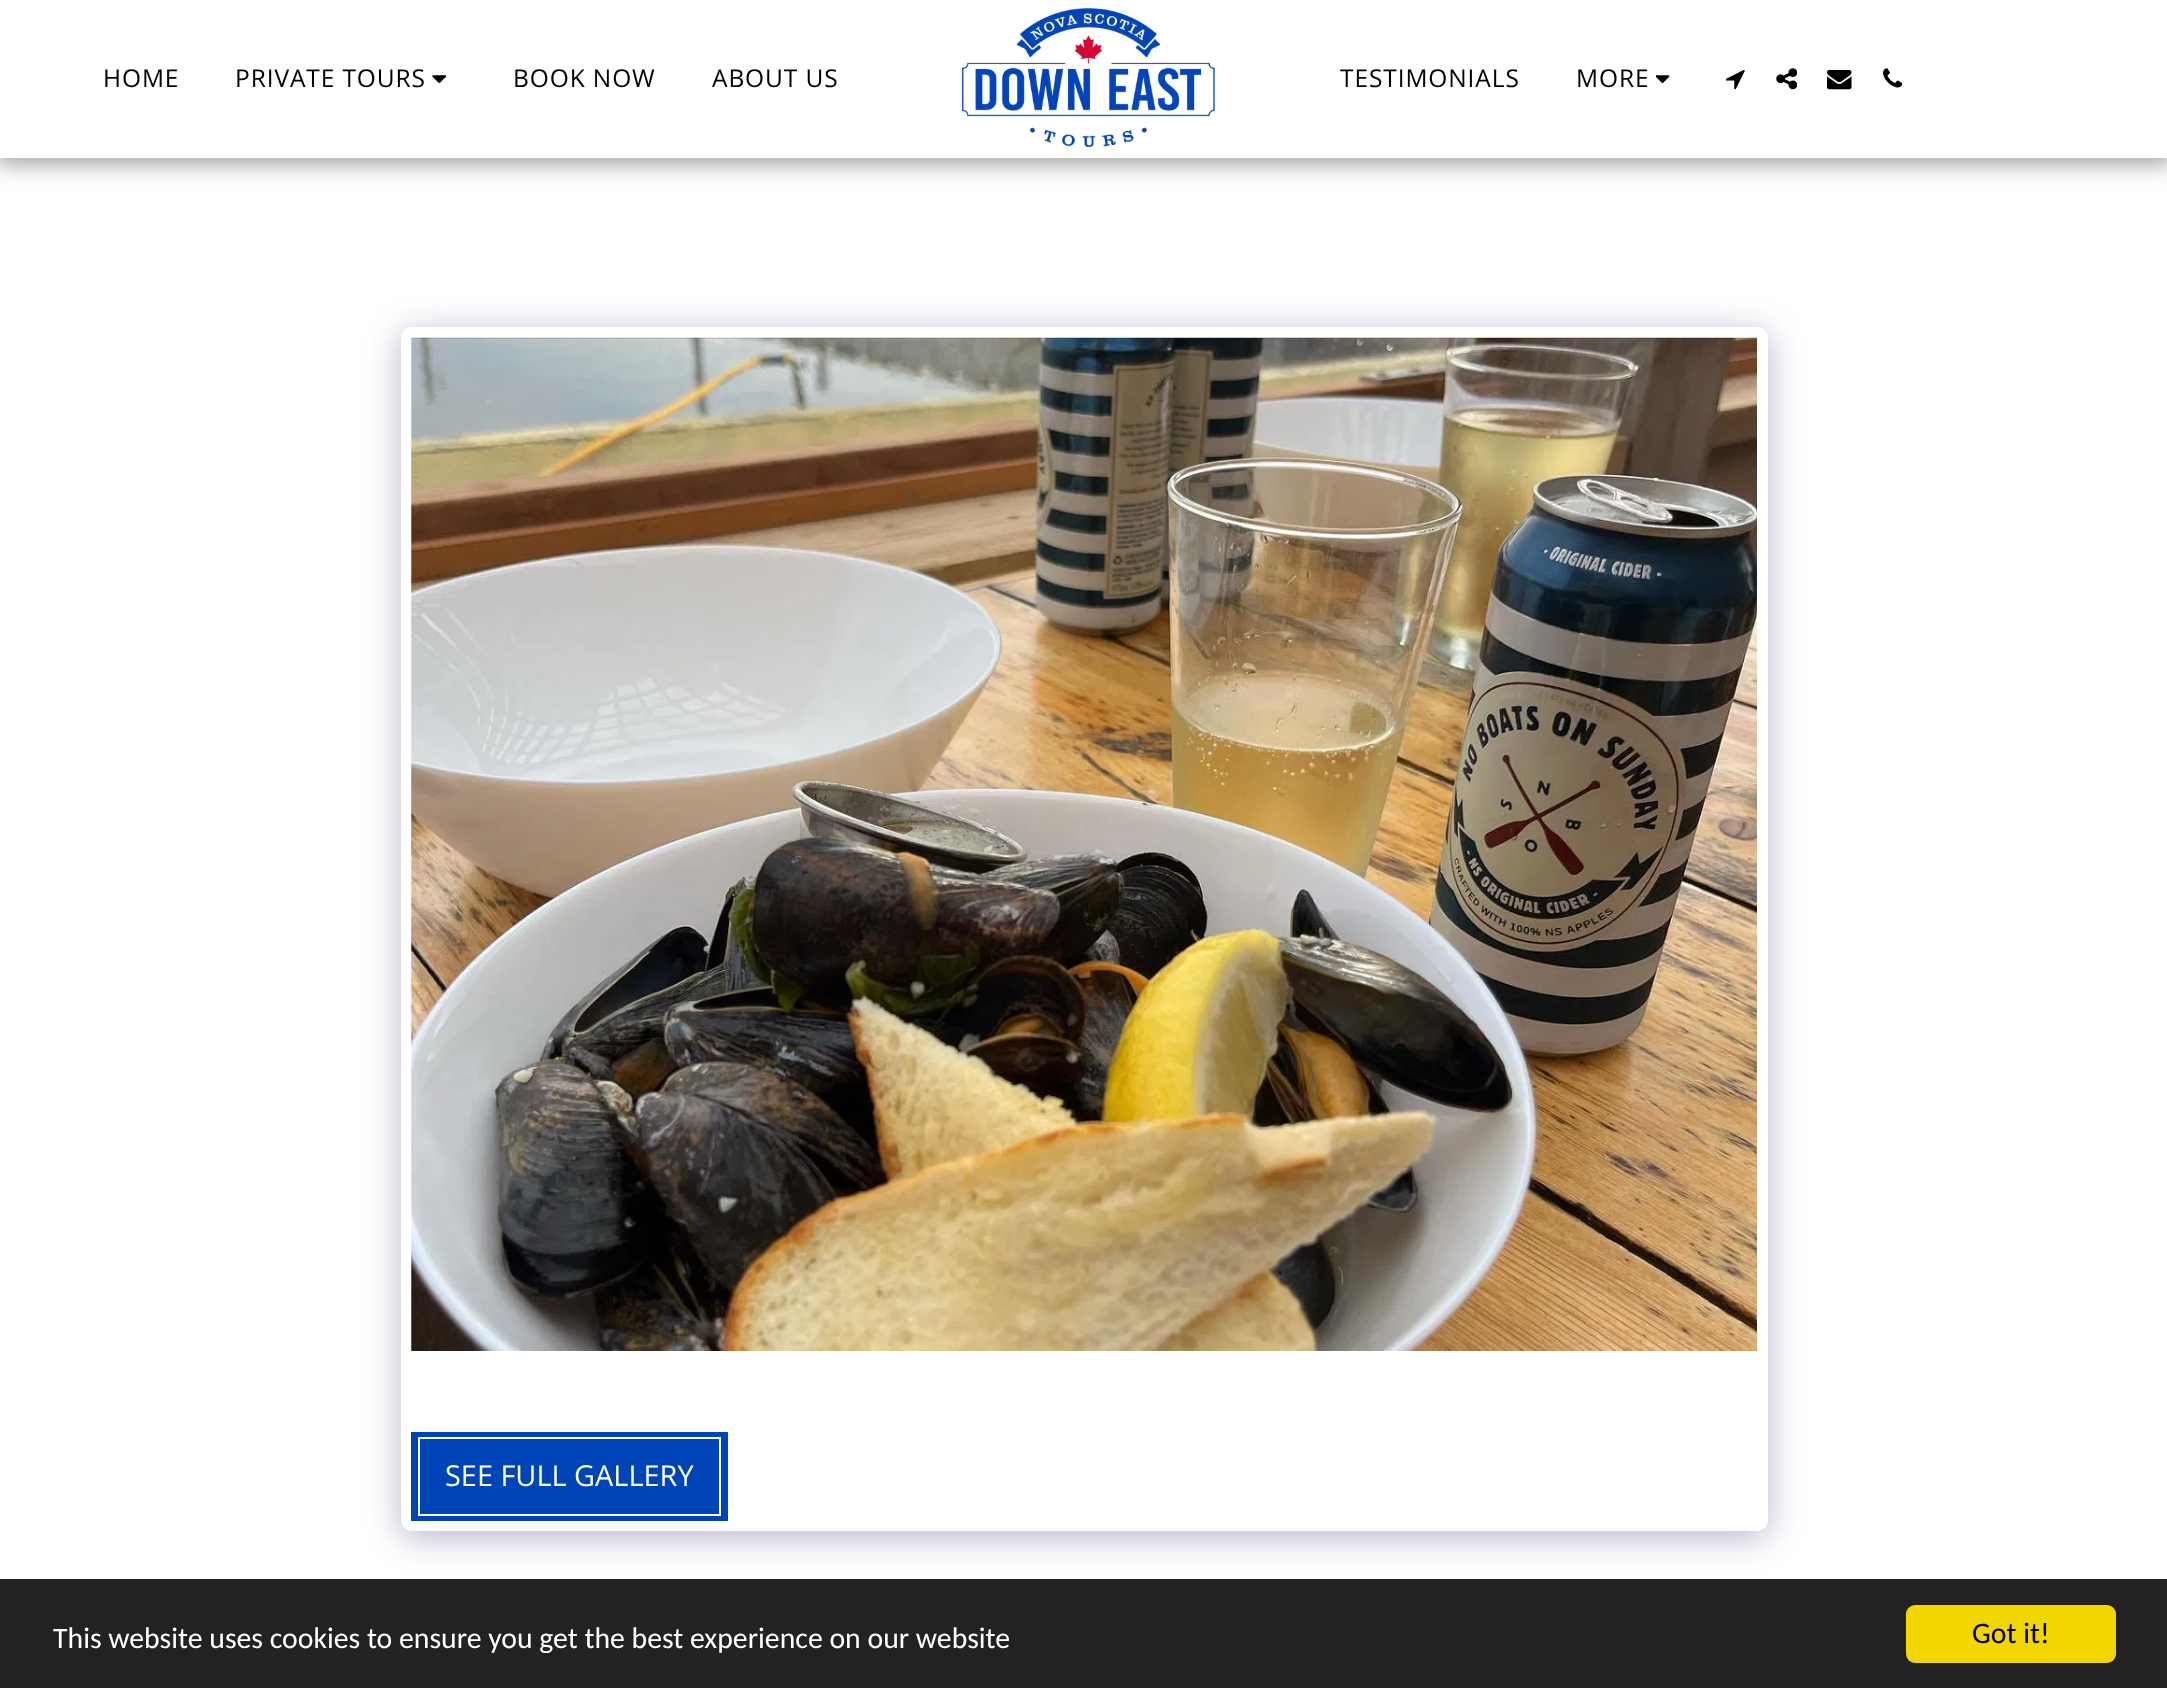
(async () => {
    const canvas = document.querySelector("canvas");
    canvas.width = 2167;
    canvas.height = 1688;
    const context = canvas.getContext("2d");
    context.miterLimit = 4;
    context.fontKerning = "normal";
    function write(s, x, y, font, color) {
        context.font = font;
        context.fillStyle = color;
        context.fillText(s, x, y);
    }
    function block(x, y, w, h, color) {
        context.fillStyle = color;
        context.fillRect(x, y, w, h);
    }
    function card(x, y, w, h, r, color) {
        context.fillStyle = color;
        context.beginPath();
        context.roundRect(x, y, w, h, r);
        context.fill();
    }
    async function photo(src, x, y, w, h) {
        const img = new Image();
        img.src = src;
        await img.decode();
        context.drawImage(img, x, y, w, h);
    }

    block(0, 0, 2167, 1688, "rgb(255, 255, 255)");
    context.fillStyle = "rgba(0, 0, 0, 0.35)";
    context.filter = "blur(10.5px)";
    context.beginPath();
    context.rect(-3, 0, 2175, 165);
    context.fill();
    context.filter = "none";
    block(0, 0, 2167, 158, "rgb(255, 255, 255)");
    context.letterSpacing = "0.9px";
    write("HOME", 103, 87, "24.5px Open Sans", "rgb(0, 0, 0)");
    write("PRIVATE TOURS", 235, 87, "24.5px Open Sans", "rgb(0, 0, 0)");
    await photo("media/1.png", 432, 75, 14, 9);
    write("BOOK NOW", 513, 87, "24.5px Open Sans", "rgb(0, 0, 0)");
    write("ABOUT US", 712, 87, "24.5px Open Sans", "rgb(0, 0, 0)");
    await photo("media/2.png", 961, 8, 254, 139);
    write("TESTIMONIALS", 1340, 87, "24.5px Open Sans", "rgb(0, 0, 0)");
    write("MORE", 1576, 87, "24.5px Open Sans", "rgb(0, 0, 0)");
    await photo("media/3.png", 1656, 75, 14, 9);
    await photo("media/4.png", 1726, 70, 19, 20);
    await photo("media/5.png", 1776, 68, 21, 22);
    await photo("media/6.png", 1827, 70, 25, 20);
    await photo("media/7.png", 1883, 68, 19, 20);
    context.fillStyle = "rgba(77, 63, 122, 0.4)";
    context.filter = "blur(17.5px)";
    context.beginPath();
    context.roundRect(401, 333, 1367, 1204, 11);
    context.fill();
    context.filter = "none";
    card(401, 327, 1367, 1204, 11, "rgb(255, 255, 255)");
    await photo("media/8.png", 411, 337, 1346, 1014);
    block(411, 1432, 317, 89, "rgb(0, 69, 183)");
    context.strokeStyle = "rgb(255, 255, 255)";
    context.lineWidth = 2;
    context.strokeRect(419, 1438, 301, 77);
    context.letterSpacing = "0px";
    write("SEE FULL GALLERY", 445, 1486, "28.9px Open Sans", "rgb(255, 255, 255)");
    block(0, 1579, 2167, 109, "rgb(34, 34, 34)");
    write("This website uses cookies to ensure you get the best experience on our website", 53, 1648, "29.75px Carlito", "rgb(255, 255, 255)");
    card(1906, 1605, 210, 58, 9, "rgb(241, 214, 0)");
    write("Got it!", 1972, 1643, "29.75px Carlito", "rgb(0, 0, 0)");
})();
